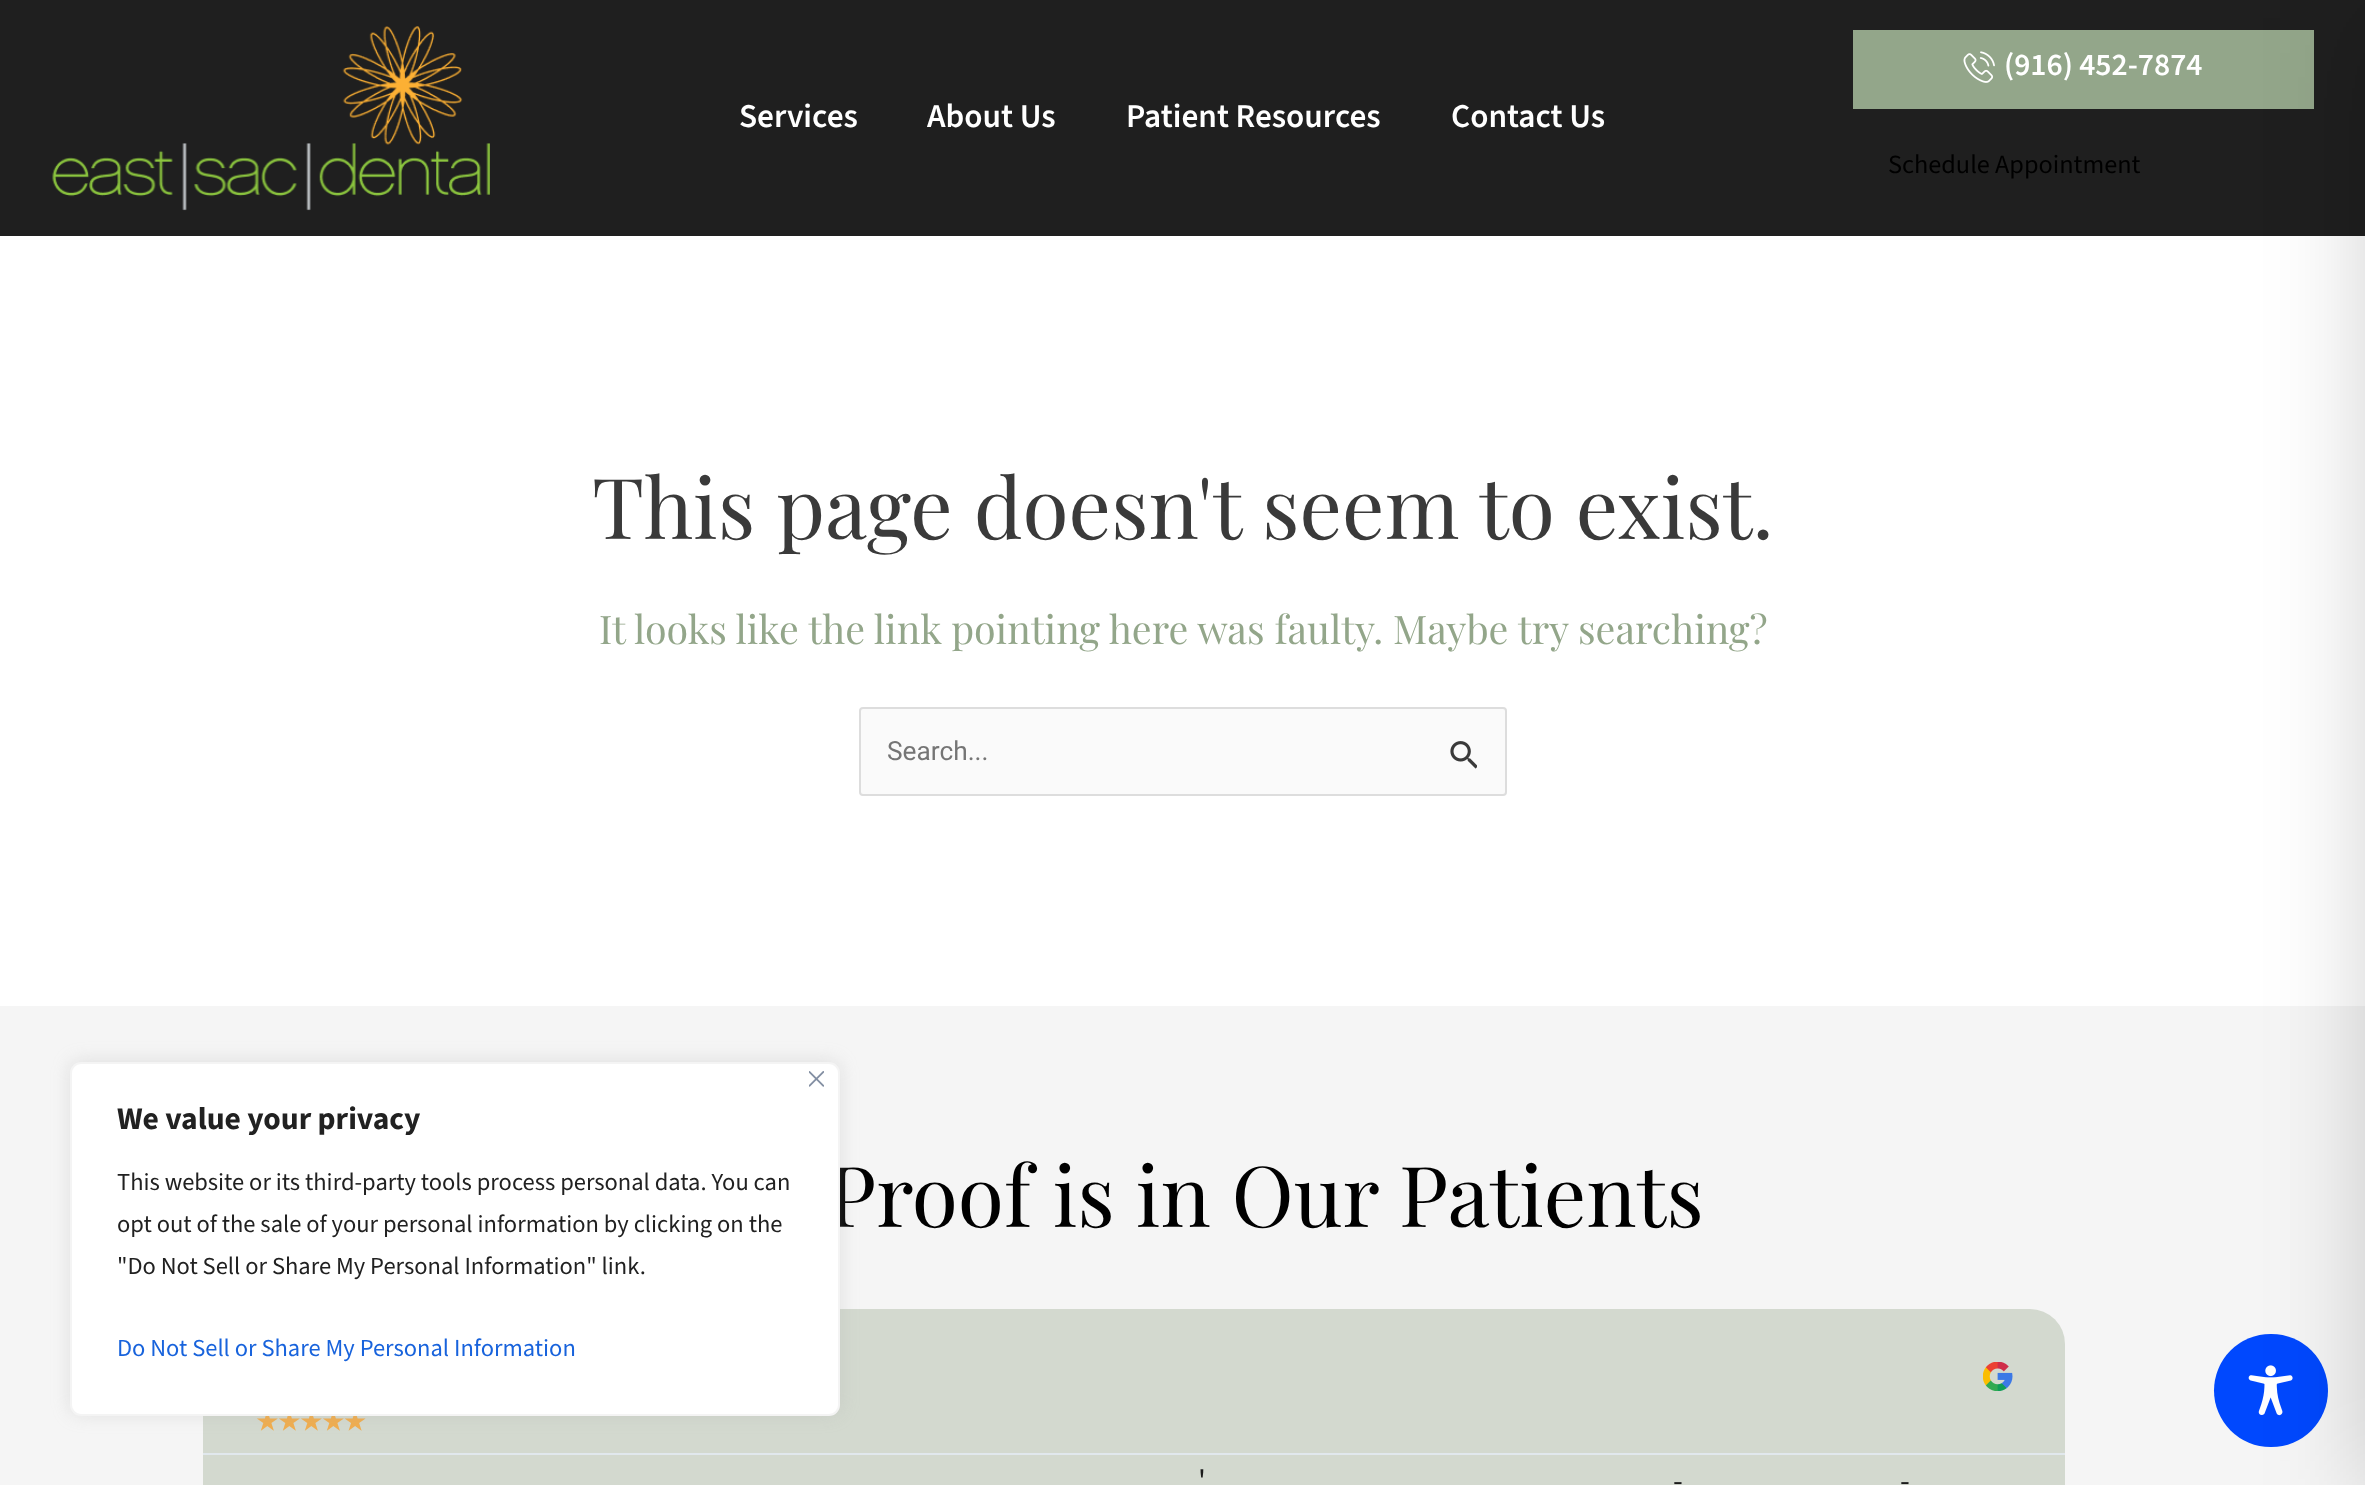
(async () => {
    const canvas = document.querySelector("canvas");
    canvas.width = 2365;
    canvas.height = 1485;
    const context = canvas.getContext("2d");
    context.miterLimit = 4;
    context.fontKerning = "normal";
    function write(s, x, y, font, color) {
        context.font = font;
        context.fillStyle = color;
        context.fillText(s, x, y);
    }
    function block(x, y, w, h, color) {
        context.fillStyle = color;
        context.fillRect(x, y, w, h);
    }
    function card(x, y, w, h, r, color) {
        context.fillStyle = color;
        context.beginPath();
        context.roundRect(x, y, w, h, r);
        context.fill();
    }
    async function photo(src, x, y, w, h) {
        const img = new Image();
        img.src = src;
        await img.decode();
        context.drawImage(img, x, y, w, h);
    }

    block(0, 0, 2365, 1485, "rgb(255, 255, 255)");
    block(0, 0, 2365, 236, "rgb(31, 31, 31)");
    await photo("media/1.png", 52, 26, 438, 185);
    write("Services", 739, 127, "600 33.25px 'Source Sans 3'", "rgb(255, 255, 255)");
    write("About Us", 927, 127, "600 33.25px 'Source Sans 3'", "rgb(255, 255, 255)");
    write("Patient Resources", 1126, 127, "600 33.25px 'Source Sans 3'", "rgb(255, 255, 255)");
    write("Contact Us", 1451, 127, "600 33.25px 'Source Sans 3'", "rgb(255, 255, 255)");
    block(1853, 30, 461, 79, "rgb(147, 166, 138)");
    await photo("media/2.png", 1963, 51, 32, 32);
    write("(916) 452-7874", 2004, 75, "600 31.5px 'Source Sans 3'", "rgb(255, 255, 255)");
    write("Schedule Appointment", 1888, 173, "26.25px 'Source Sans 3'", "rgb(0, 0, 0)");
    write("This page doesn't seem to exist.", 592, 539, "84px Playfair Display", "rgb(58, 58, 58)");
    write("It looks like the link pointing here was faulty. Maybe try searching?", 599, 644, "39.4px Playfair Display", "rgb(147, 166, 138)");
    context.fillStyle = "rgb(250, 250, 250)";
    context.beginPath();
    context.roundRect(860, 708, 646, 87, 3);
    context.fill();
    context.strokeStyle = "rgb(221, 221, 221)";
    context.lineWidth = 2;
    context.stroke();
    write("Search...", 887, 760, "26.25px Roboto", "rgb(117, 117, 117)");
    await photo("media/3.png", 1450, 741, 27, 28);
    block(0, 1006, 2365, 479, "rgb(245, 245, 245)");
    write("Proof is in Our Patients", 827, 1227, "84px Playfair Display", "rgb(0, 0, 0)");
    card(203, 1309, 1862, 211, 35, "rgb(211, 217, 207)");
    block(203, 1453, 1862, 2, "rgb(225, 232, 237)");
    await photo("media/4.png", 1983, 1362, 30, 29);
    write("★★★★★", 256, 1430, "bold 24.5px DejaVu Sans", "rgb(240, 173, 78)");
    write("'", 1198, 1491, "31.5px 'Source Sans 3'", "rgb(27, 27, 27)");
    write("-", 1673, 1491, "31.5px 'Source Sans 3'", "rgb(27, 27, 27)");
    write("-", 1900, 1491, "31.5px 'Source Sans 3'", "rgb(27, 27, 27)");
    card(2214, 1334, 114, 113, 56.5, "rgb(0, 72, 254)");
    await photo("media/6.png", 2248, 1365, 45, 51);
    context.fillStyle = "rgba(0, 0, 0, 0.2)";
    context.filter = "blur(52.5px)";
    context.beginPath();
    context.rect(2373, 18, 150, 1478);
    context.fill();
    context.filter = "none";
    context.fillStyle = "rgba(172, 171, 171, 0.3)";
    context.filter = "blur(9px)";
    context.beginPath();
    context.roundRect(70, 1061, 770, 353, 11);
    context.fill();
    context.filter = "none";
    context.fillStyle = "rgb(255, 255, 255)";
    context.beginPath();
    context.roundRect(71, 1063, 768, 352, 10);
    context.fill();
    context.strokeStyle = "rgb(244, 244, 244)";
    context.stroke();
    await photo("media/5.png", 809, 1071, 15, 16);
    write("We value your privacy", 117, 1129, "bold 31.5px 'Source Sans 3'", "rgb(33, 33, 33)");
    write("This website or its third-party tools process personal data. You can", 117, 1190, "24.5px 'Source Sans 3'", "rgb(33, 33, 33)");
    write("opt out of the sale of your personal information by clicking on the", 117, 1232, "24.5px 'Source Sans 3'", "rgb(33, 33, 33)");
    write("\"Do Not Sell or Share My Personal Information\" link.", 117, 1274, "24.5px 'Source Sans 3'", "rgb(33, 33, 33)");
    write("Do Not Sell or Share My Personal Information", 117, 1356, "24.5px Source Sans Pro", "rgb(24, 99, 220)");
})();
